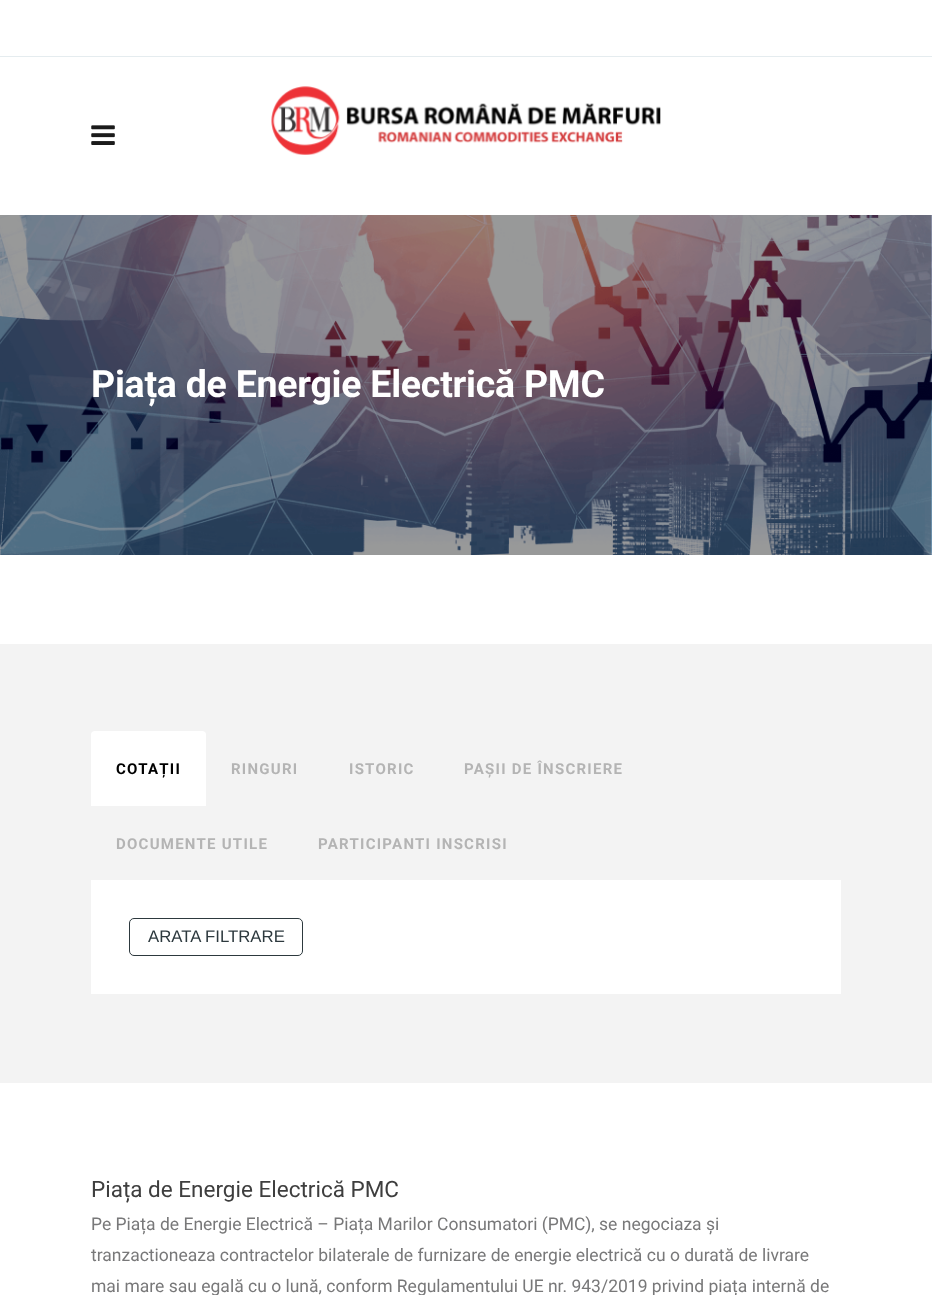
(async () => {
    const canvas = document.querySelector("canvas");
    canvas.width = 932;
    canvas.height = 1295;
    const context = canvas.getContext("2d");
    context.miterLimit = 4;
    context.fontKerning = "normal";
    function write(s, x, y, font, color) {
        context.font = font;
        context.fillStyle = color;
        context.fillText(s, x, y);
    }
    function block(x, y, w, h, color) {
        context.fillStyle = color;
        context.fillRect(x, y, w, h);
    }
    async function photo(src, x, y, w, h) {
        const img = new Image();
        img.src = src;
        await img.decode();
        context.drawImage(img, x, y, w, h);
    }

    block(0, 0, 932, 1295, "rgb(255, 255, 255)");
    block(0, 56, 932, 1, "rgb(229, 236, 239)");
    await photo("media/1.png", 91, 125, 24, 20);
    await photo("media/2.png", 271, 86, 390, 69);
    await photo("media/3.png", 0, 215, 932, 340);
    context.letterSpacing = "-0.25px";
    write("Piața de Energie Electrică PMC", 91, 397, "bold 37.5px Roboto", "rgb(255, 255, 255)");
    block(0, 644, 932, 439, "rgb(243, 243, 243)");
    context.fillStyle = "rgb(255, 255, 255)";
    context.beginPath();
    context.roundRect(91, 731, 115, 75, [4, 4, 0, 0]);
    context.fill();
    context.letterSpacing = "1.25px";
    write("COTAȚII", 116, 774, "bold 15px Roboto", "rgb(0, 0, 0)");
    write("RINGURI", 231, 774, "bold 15px Roboto", "rgb(180, 180, 180)");
    write("ISTORIC", 349, 774, "bold 15px Roboto", "rgb(180, 180, 180)");
    write("PAȘII DE ÎNSCRIERE", 464, 774, "bold 15px Roboto", "rgb(180, 180, 180)");
    write("DOCUMENTE UTILE", 116, 849, "bold 15px Roboto", "rgb(180, 180, 180)");
    write("PARTICIPANTI INSCRISI", 318, 849, "bold 15px Roboto", "rgb(180, 180, 180)");
    block(91, 880, 750, 114, "rgb(255, 255, 255)");
    context.beginPath();
    context.roundRect(129.5, 918.5, 173, 37, 4.5);
    context.strokeStyle = "rgb(45, 57, 62)";
    context.stroke();
    context.letterSpacing = "0px";
    write("ARATA FILTRARE", 148, 942, "16.75px Liberation Sans", "rgb(45, 57, 62)");
    write("Piața de Energie Electrică PMC", 91, 1197, "22.5px Roboto", "rgb(62, 62, 62)");
    write("Pe Piața de Energie Electrică – Piața Marilor Consumatori (PMC), se negociaza și", 91, 1230, "17.5px Roboto", "rgb(120, 120, 121)");
    write("tranzactioneaza contractelor bilaterale de furnizare de energie electrică cu o durată de livrare", 91, 1261, "17.5px Roboto", "rgb(120, 120, 121)");
    write("mai mare sau egală cu o lună, conform Regulamentului UE nr. 943/2019 privind piața internă de", 91, 1292, "17.5px Roboto", "rgb(120, 120, 121)");
})();
